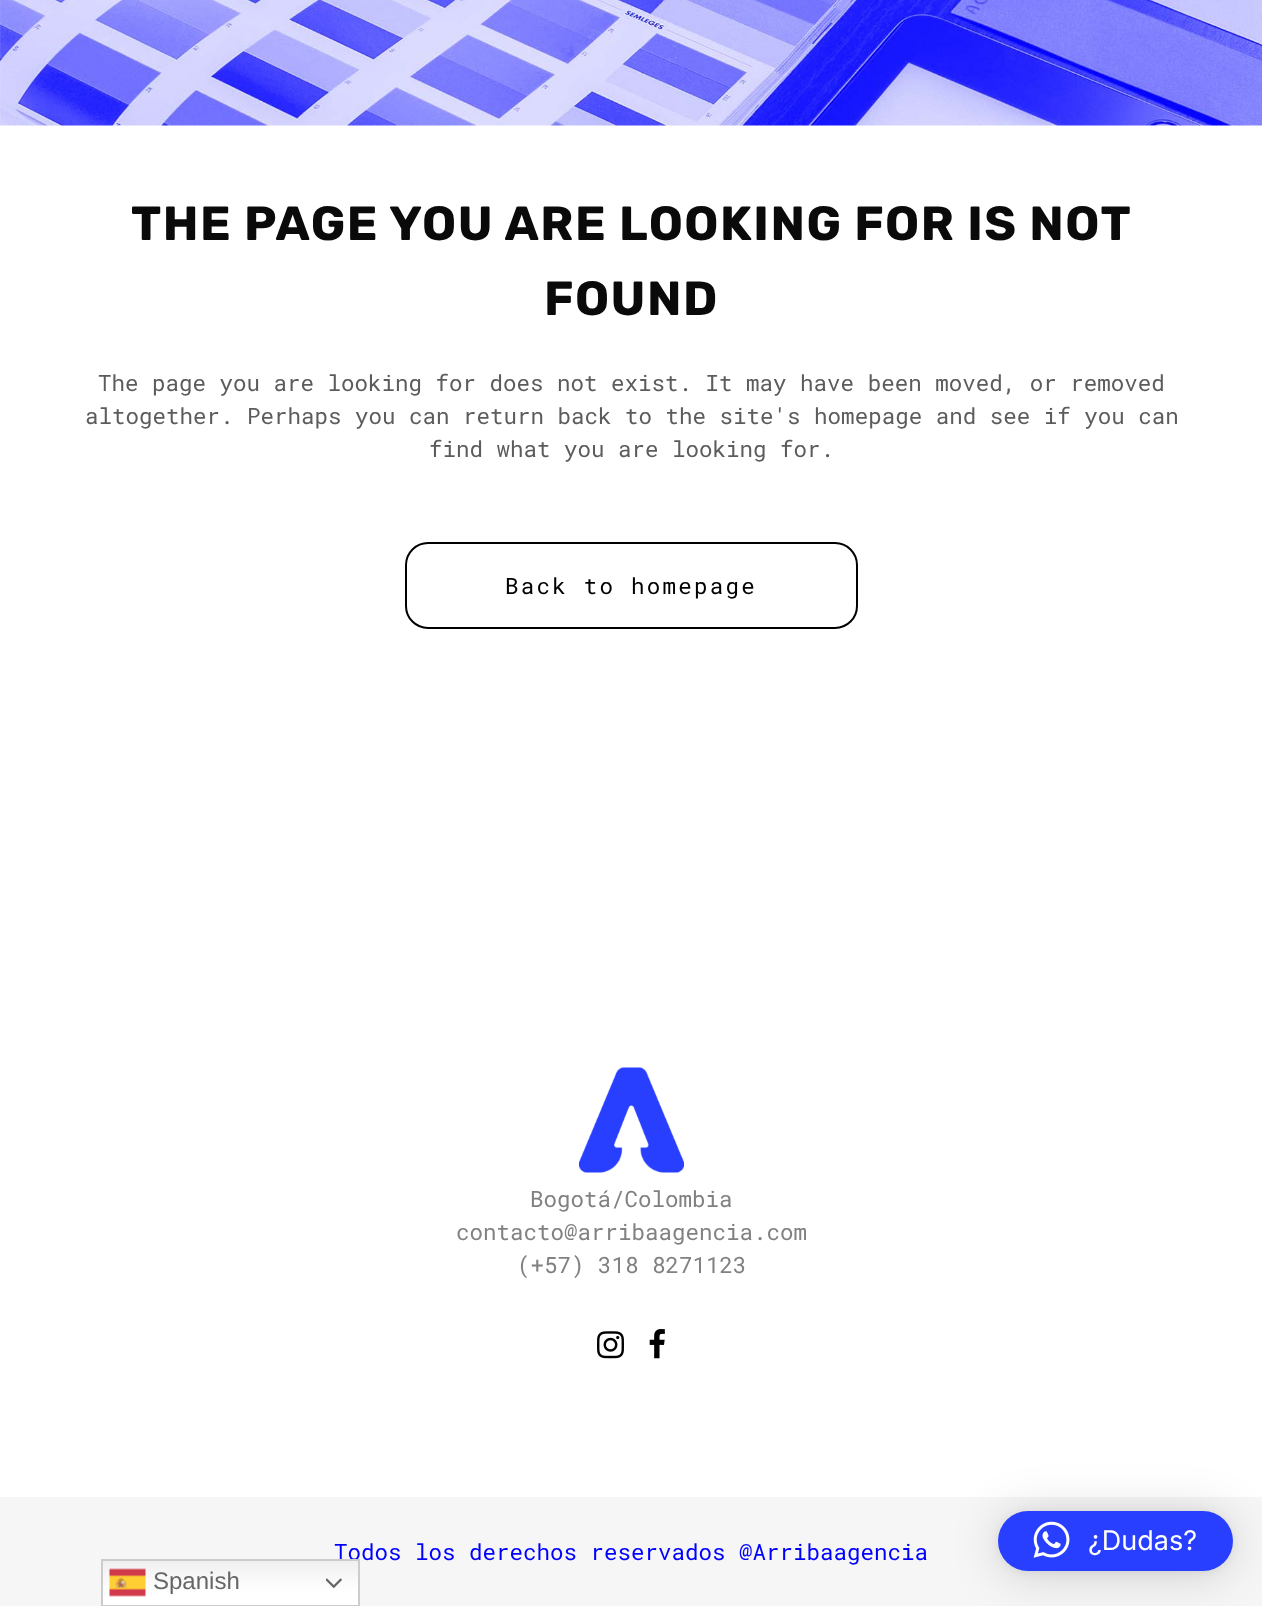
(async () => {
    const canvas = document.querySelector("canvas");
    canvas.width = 1262;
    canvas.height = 1606;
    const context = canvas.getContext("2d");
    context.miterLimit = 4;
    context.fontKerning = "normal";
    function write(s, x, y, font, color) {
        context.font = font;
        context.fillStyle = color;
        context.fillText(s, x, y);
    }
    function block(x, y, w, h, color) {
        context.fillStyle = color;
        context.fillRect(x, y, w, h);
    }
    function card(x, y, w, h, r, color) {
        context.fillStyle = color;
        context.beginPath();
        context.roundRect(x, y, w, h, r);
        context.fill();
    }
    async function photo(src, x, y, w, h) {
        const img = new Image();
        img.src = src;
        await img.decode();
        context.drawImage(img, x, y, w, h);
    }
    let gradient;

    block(0, 0, 1262, 1606, "rgb(255, 255, 255)");
    await photo("media/1.png", 0, 0, 1262, 126);
    context.letterSpacing = "1.5px";
    write("THE PAGE YOU ARE LOOKING FOR IS NOT", 131, 240, "bold 48px Rubik", "rgb(10, 10, 10)");
    write("FOUND", 544, 315, "bold 48px Rubik", "rgb(10, 10, 10)");
    context.letterSpacing = "0px";
    write("The page you are looking for does not exist. It may have been moved, or removed", 98, 391, "22.5px Roboto Mono", "rgb(93, 92, 92)");
    write("altogether. Perhaps you can return back to the site's homepage and see if you can", 85, 424, "22.5px Roboto Mono", "rgb(93, 92, 92)");
    write("find what you are looking for.", 429, 457, "22.5px Roboto Mono", "rgb(93, 92, 92)");
    context.beginPath();
    context.roundRect(406, 543, 451, 85, 22);
    context.strokeStyle = "rgb(0, 0, 0)";
    context.lineWidth = 2;
    context.stroke();
    context.letterSpacing = "2.25px";
    write("Back to homepage", 505, 594, "22.5px Roboto Mono", "rgb(0, 0, 0)");
    await photo("media/2.png", 579, 1067, 105, 106);
    context.letterSpacing = "0px";
    write("Bogotá/Colombia", 530, 1207, "22.5px Roboto Mono", "rgb(129, 129, 129)");
    write("contacto@arribaagencia.com", 456, 1240, "22.5px Roboto Mono", "rgb(129, 129, 129)");
    write("(+57) 318 8271123", 517, 1273, "22.5px Roboto Mono", "rgb(129, 129, 129)");
    await photo("media/3.png", 597, 1331, 27, 28);
    await photo("media/4.png", 649, 1329, 16, 30);
    block(0, 1497, 1262, 109, "rgb(246, 246, 246)");
    write("Todos los derechos reservados @Arribaagencia", 334, 1560, "22.5px Roboto Mono", "rgb(0, 0, 255)");
    context.fillStyle = "rgba(0, 0, 0, 0.16)";
    context.filter = "blur(24px)";
    context.beginPath();
    context.roundRect(998, 1514, 235, 60, 30);
    context.fill();
    context.filter = "none";
    context.fillStyle = "rgba(0, 0, 0, 0.06)";
    context.filter = "blur(4.5px)";
    context.beginPath();
    context.roundRect(998, 1512, 235, 60, 30);
    context.fill();
    context.filter = "none";
    card(998, 1511, 235, 60, 30, "rgb(40, 63, 255)");
    await photo("media/5.png", 1033, 1521, 37, 37);
    write("¿Dudas?", 1088, 1550, "27px Inter", "rgb(255, 255, 255)");
    gradient = context.createLinearGradient(230, 1559, 230, 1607);
    gradient.addColorStop(0, "rgb(239, 239, 239)");
    gradient.addColorStop(0.7, "rgb(255, 255, 255)");
    context.fillStyle = gradient;
    context.fillRect(103, 1561, 255, 44);
    context.strokeStyle = "rgb(204, 204, 204)";
    context.strokeRect(102, 1560, 257, 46);
    await photo("media/6.png", 109, 1568, 37, 29);
    write("Spanish", 153, 1589, "24px Liberation Sans", "rgb(102, 102, 102)");
    await photo("media/7.png", 326, 1578, 16, 10);
})();
